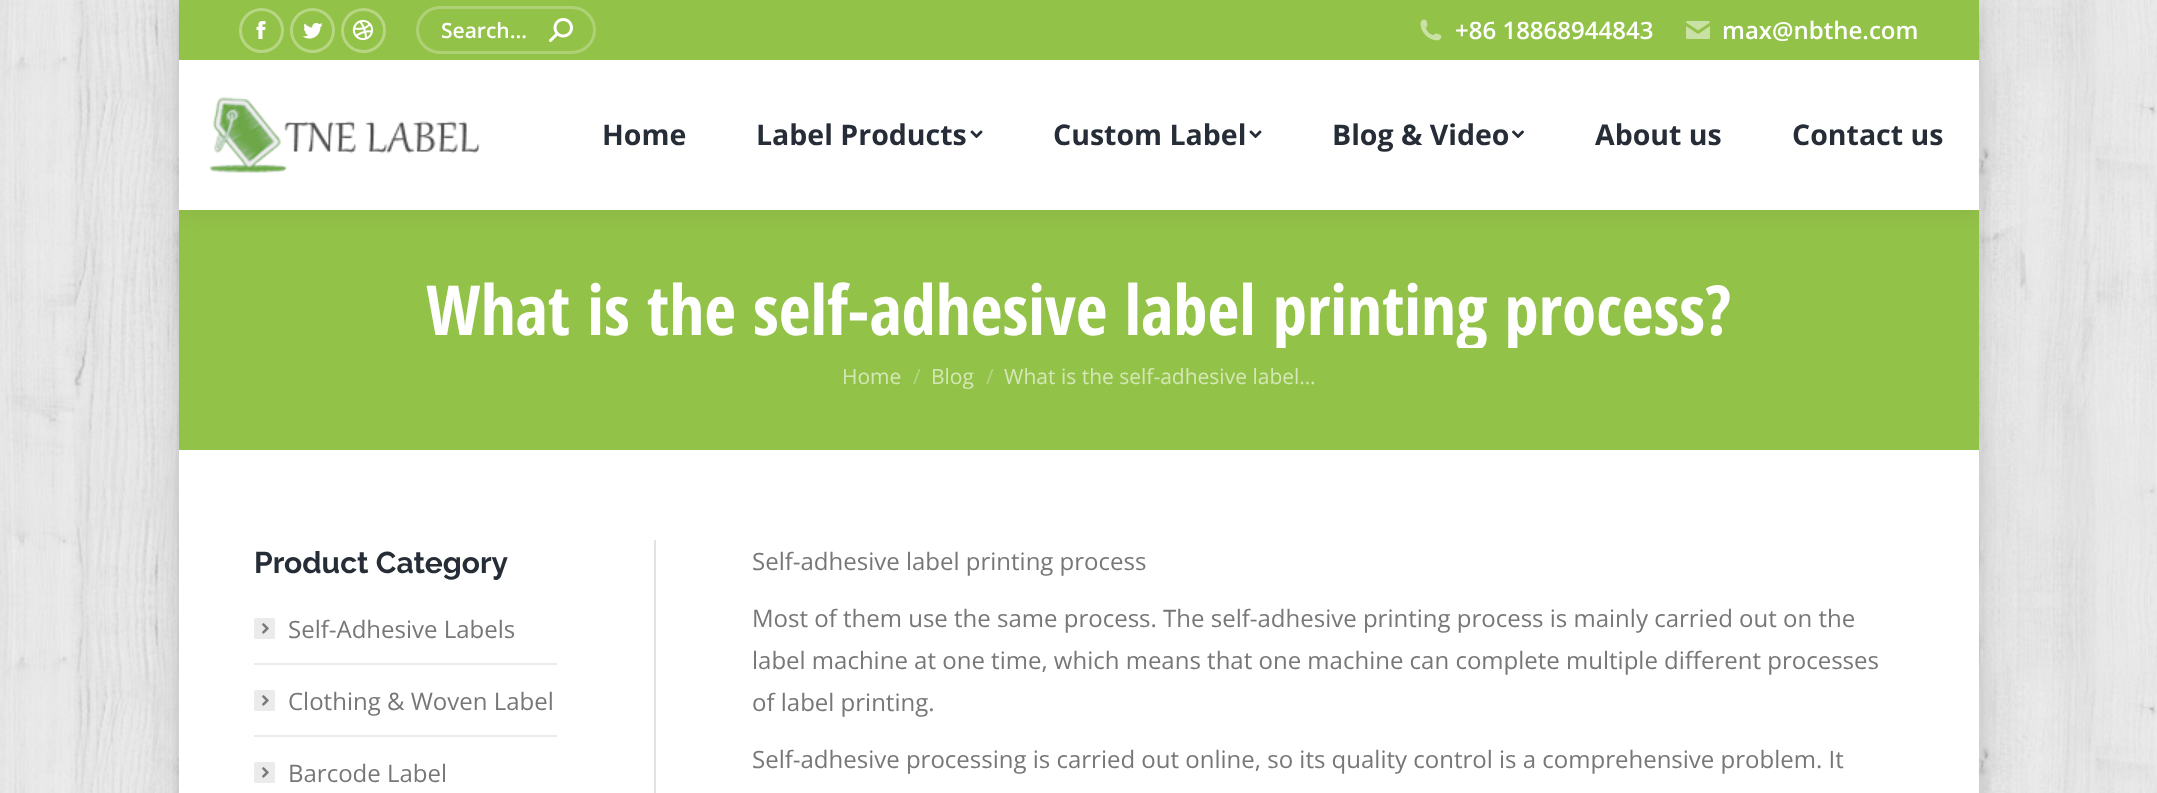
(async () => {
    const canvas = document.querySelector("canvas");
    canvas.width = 2157;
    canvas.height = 793;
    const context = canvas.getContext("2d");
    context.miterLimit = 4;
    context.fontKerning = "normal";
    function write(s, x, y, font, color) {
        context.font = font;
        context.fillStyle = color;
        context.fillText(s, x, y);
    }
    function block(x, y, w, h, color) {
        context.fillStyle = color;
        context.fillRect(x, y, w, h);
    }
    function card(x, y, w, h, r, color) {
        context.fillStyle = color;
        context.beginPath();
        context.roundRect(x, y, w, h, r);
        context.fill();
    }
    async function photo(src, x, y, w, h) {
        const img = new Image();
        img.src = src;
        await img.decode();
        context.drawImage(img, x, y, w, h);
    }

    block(0, 0, 2157, 793, "rgb(255, 255, 255)");
    await photo("media/1.png", 0, 0, 2157, 793);
    context.fillStyle = "rgba(0, 0, 0, 0.15)";
    context.filter = "blur(9px)";
    context.beginPath();
    context.rect(179, 0, 1800, 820);
    context.fill();
    context.filter = "none";
    block(179, 450, 1800, 343, "rgb(255, 255, 255)");
    block(179, 210, 1800, 240, "rgb(147, 194, 72)");
    context.save();
    context.beginPath();
    context.rect(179, 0, 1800, 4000);
    context.clip();
    context.fillStyle = "rgba(0, 0, 0, 0.07)";
    context.filter = "blur(11px)";
    context.beginPath();
    context.rect(177, -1, 1803, 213);
    context.fill();
    context.filter = "none";
    context.restore();
    block(179, 60, 1800, 150, "rgb(255, 255, 255)");
    block(179, 0, 1800, 60, "rgb(147, 194, 72)");
    context.beginPath();
    context.arc(261.5, 30.5, 21, 0, Math.PI * 2);
    context.strokeStyle = "rgb(182, 214, 131)";
    context.lineWidth = 3;
    context.stroke();
    await photo("media/2.png", 256, 21, 10, 18);
    context.beginPath();
    context.arc(312.5, 30.5, 21, 0, Math.PI * 2);
    context.stroke();
    await photo("media/3.png", 303, 22, 20, 17);
    context.beginPath();
    context.arc(363.5, 30.5, 21, 0, Math.PI * 2);
    context.stroke();
    await photo("media/4.png", 352, 19, 22, 22);
    context.beginPath();
    context.roundRect(417.5, 7.5, 177, 45, 22.5);
    context.strokeStyle = "rgb(174, 209, 118)";
    context.stroke();
    write("Search...", 441, 38, "600 21px Open Sans", "rgb(255, 255, 255)");
    await photo("media/5.png", 549, 18, 24, 24);
    await photo("media/6.png", 1420, 19, 22, 22);
    write("+86 18868944843", 1455, 39, "600 24px Open Sans", "rgb(255, 255, 255)");
    await photo("media/7.png", 1686, 21, 24, 18);
    write("max@nbthe.com", 1722, 39, "600 24px Open Sans", "rgb(255, 255, 255)");
    await photo("media/8.png", 209, 97, 271, 76);
    write("Home", 602, 145, "bold 28.5px Open Sans", "rgb(38, 45, 55)");
    write("Label Products", 756, 145, "bold 28.5px Open Sans", "rgb(38, 45, 55)");
    await photo("media/9.png", 970, 130, 13, 8);
    write("Custom Label", 1053, 145, "bold 28.5px Open Sans", "rgb(38, 45, 55)");
    await photo("media/9.png", 1249, 130, 13, 8);
    write("Blog & Video", 1332, 145, "bold 28.5px Open Sans", "rgb(38, 45, 55)");
    await photo("media/10.png", 1512, 130, 12, 8);
    write("About us", 1595, 145, "bold 28.5px Open Sans", "rgb(38, 45, 55)");
    write("Contact us", 1792, 145, "bold 28.5px Open Sans", "rgb(38, 45, 55)");
    context.save();
    context.beginPath();
    context.rect(426, 267, 1305, 81);
    context.clip();
    write("What is the self-adhesive label printing process?", 426, 335, "bold 69px Open Sans Condensed", "rgb(255, 255, 255)");
    context.restore();
    write("Home", 842, 384, "21px Open Sans", "rgb(212, 231, 182)");
    write("/", 913, 384, "21px Open Sans", "rgb(180, 213, 127)");
    write("Blog", 931, 384, "21px Open Sans", "rgb(212, 231, 182)");
    write("/", 986, 384, "21px Open Sans", "rgb(180, 213, 127)");
    write("What is the self-adhesive label…", 1004, 384, "21px Open Sans", "rgb(212, 231, 182)");
    block(654, 540, 2, 253, "rgb(226, 226, 226)");
    write("Product Category", 254, 573, "bold 30px Raleway", "rgb(38, 45, 55)");
    card(254, 618, 21, 21, 1.5, "rgb(235, 235, 235)");
    await photo("media/11.png", 262, 623, 7, 11);
    write("Self-Adhesive Labels", 288, 638, "24px Open Sans", "rgb(119, 119, 119)");
    block(254, 663, 303, 2, "rgb(235, 235, 235)");
    card(254, 690, 21, 21, 1.5, "rgb(235, 235, 235)");
    await photo("media/11.png", 262, 695, 7, 11);
    write("Clothing & Woven Label", 288, 710, "24px Open Sans", "rgb(119, 119, 119)");
    block(254, 735, 303, 2, "rgb(235, 235, 235)");
    card(254, 762, 21, 21, 1.5, "rgb(235, 235, 235)");
    await photo("media/11.png", 262, 767, 7, 11);
    write("Barcode Label", 288, 782, "24px Open Sans", "rgb(119, 119, 119)");
    write("Self-adhesive label printing process", 752, 570, "24px Open Sans", "rgb(119, 119, 119)");
    write("Most of them use the same process. The self-adhesive printing process is mainly carried out on the", 752, 627, "24px Open Sans", "rgb(119, 119, 119)");
    write("label machine at one time, which means that one machine can complete multiple different processes", 752, 669, "24px Open Sans", "rgb(119, 119, 119)");
    write("of label printing.", 752, 711, "24px Open Sans", "rgb(119, 119, 119)");
    write("Self-adhesive processing is carried out online, so its quality control is a comprehensive problem. It", 752, 768, "24px Open Sans", "rgb(119, 119, 119)");
})();
